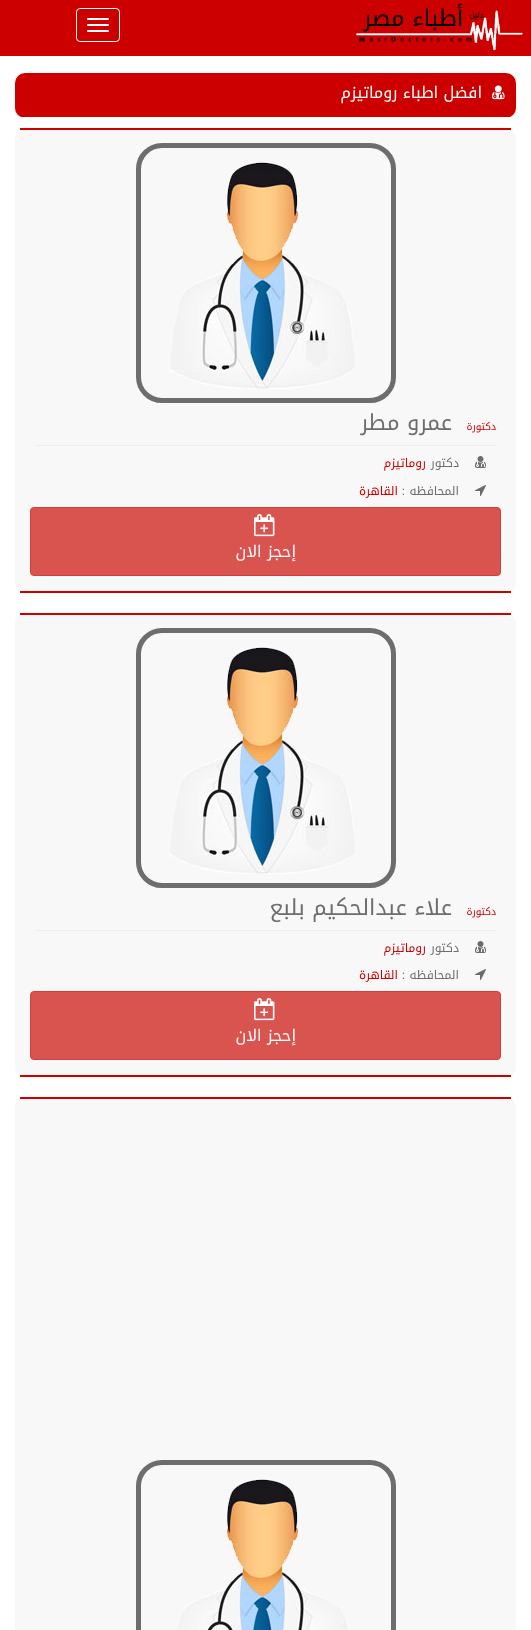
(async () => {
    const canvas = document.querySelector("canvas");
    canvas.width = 531;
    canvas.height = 1630;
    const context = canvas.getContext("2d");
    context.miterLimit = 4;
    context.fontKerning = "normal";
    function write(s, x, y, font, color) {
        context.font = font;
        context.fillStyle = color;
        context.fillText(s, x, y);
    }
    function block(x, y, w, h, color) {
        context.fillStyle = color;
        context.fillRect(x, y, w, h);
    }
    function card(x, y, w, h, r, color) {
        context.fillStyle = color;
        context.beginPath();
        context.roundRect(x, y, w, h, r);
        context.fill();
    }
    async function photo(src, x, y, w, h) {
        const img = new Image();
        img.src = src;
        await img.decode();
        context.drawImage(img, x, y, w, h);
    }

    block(0, 0, 531, 1630, "rgb(255, 255, 255)");
    block(0, 0, 531, 56, "rgb(205, 0, 0)");
    await photo("media/1.png", 356, 3, 167, 48);
    context.beginPath();
    context.roundRect(76.5, 8.5, 43, 33, 3.5);
    context.strokeStyle = "rgb(255, 255, 255)";
    context.stroke();
    card(87, 18, 22, 2, 1, "rgb(255, 255, 255)");
    card(87, 24, 22, 2, 1, "rgb(255, 255, 255)");
    card(87, 30, 22, 2, 1, "rgb(255, 255, 255)");
    card(15, 73, 501, 45, 10, "rgb(205, 0, 0)");
    block(20, 117, 491, 1, "rgb(255, 255, 255)");
    await photo("media/2.png", 492, 85, 13, 15);
    context.direction = "rtl";
    write("افضل اطباء روماتيزم", 482, 98, "16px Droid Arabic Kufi", "rgb(255, 255, 255)");
    card(15, 128, 501, 465, 10, "rgb(248, 248, 248)");
    block(20, 128, 491, 2, "rgb(205, 0, 0)");
    block(20, 591, 491, 2, "rgb(205, 0, 0)");
    context.beginPath();
    context.roundRect(138.5, 145.5, 255, 255, 23.5);
    context.strokeStyle = "rgb(109, 109, 109)";
    context.lineWidth = 5;
    context.stroke();
    await photo("media/3.png", 169, 162, 186, 227);
    block(35, 445, 461, 1, "rgb(237, 237, 237)");
    write("دكتورة", 496, 430, "10px Droid Arabic Kufi", "rgb(205, 0, 0)");
    write("عمرو مطر", 452, 430, "22px Droid Arabic Kufi", "rgb(109, 109, 109)");
    await photo("media/4.png", 475, 456, 11, 12);
    write("دكتور", 459, 467, "12px Droid Arabic Kufi", "rgb(109, 109, 109)");
    write("روماتيزم", 426, 467, "12px Droid Arabic Kufi", "rgb(205, 0, 0)");
    await photo("media/5.png", 475, 485, 11, 11);
    write("المحافظه", 459, 495, "12px Droid Arabic Kufi", "rgb(109, 109, 109)");
    write(":", 405, 495, "12px Liberation Sans", "rgb(109, 109, 109)");
    write("القاهرة", 398, 495, "12px Droid Arabic Kufi", "rgb(205, 0, 0)");
    context.fillStyle = "rgb(217, 83, 79)";
    context.beginPath();
    context.roundRect(30.5, 507.5, 470, 68, 3.5);
    context.fill();
    context.strokeStyle = "rgb(212, 63, 58)";
    context.lineWidth = 1;
    context.stroke();
    await photo("media/6.png", 254, 514, 21, 23);
    write("إحجز الان", 296, 557, "16px Droid Arabic Kufi", "rgb(255, 255, 255)");
    card(15, 613, 501, 464, 10, "rgb(248, 248, 248)");
    block(20, 613, 491, 2, "rgb(205, 0, 0)");
    block(20, 1075, 491, 2, "rgb(205, 0, 0)");
    context.beginPath();
    context.roundRect(138.5, 630.5, 255, 255, 23.5);
    context.strokeStyle = "rgb(109, 109, 109)";
    context.lineWidth = 5;
    context.stroke();
    await photo("media/3.png", 169, 647, 186, 227);
    block(35, 930, 461, 1, "rgb(237, 237, 237)");
    write("دكتورة", 496, 915, "10px Droid Arabic Kufi", "rgb(205, 0, 0)");
    write("علاء عبدالحكيم بلبع", 452, 915, "22px Droid Arabic Kufi", "rgb(109, 109, 109)");
    await photo("media/4.png", 475, 941, 11, 12);
    write("دكتور", 459, 952, "12px Droid Arabic Kufi", "rgb(109, 109, 109)");
    write("روماتيزم", 426, 952, "12px Droid Arabic Kufi", "rgb(205, 0, 0)");
    await photo("media/5.png", 475, 969, 11, 11);
    write("المحافظه", 459, 979, "12px Droid Arabic Kufi", "rgb(109, 109, 109)");
    write(":", 405, 979, "12px Liberation Sans", "rgb(109, 109, 109)");
    write("القاهرة", 398, 979, "12px Droid Arabic Kufi", "rgb(205, 0, 0)");
    context.fillStyle = "rgb(217, 83, 79)";
    context.beginPath();
    context.roundRect(30.5, 991.5, 470, 68, 3.5);
    context.fill();
    context.strokeStyle = "rgb(212, 63, 58)";
    context.lineWidth = 1;
    context.stroke();
    await photo("media/6.png", 254, 998, 21, 23);
    write("إحجز الان", 296, 1041, "16px Droid Arabic Kufi", "rgb(255, 255, 255)");
    card(15, 1097, 501, 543, 10, "rgb(248, 248, 248)");
    block(20, 1097, 491, 2, "rgb(205, 0, 0)");
    context.beginPath();
    context.roundRect(138.5, 1462.5, 255, 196, 23.5);
    context.strokeStyle = "rgb(109, 109, 109)";
    context.lineWidth = 5;
    context.stroke();
    await photo("media/7.png", 178, 1479, 172, 151);
})();
